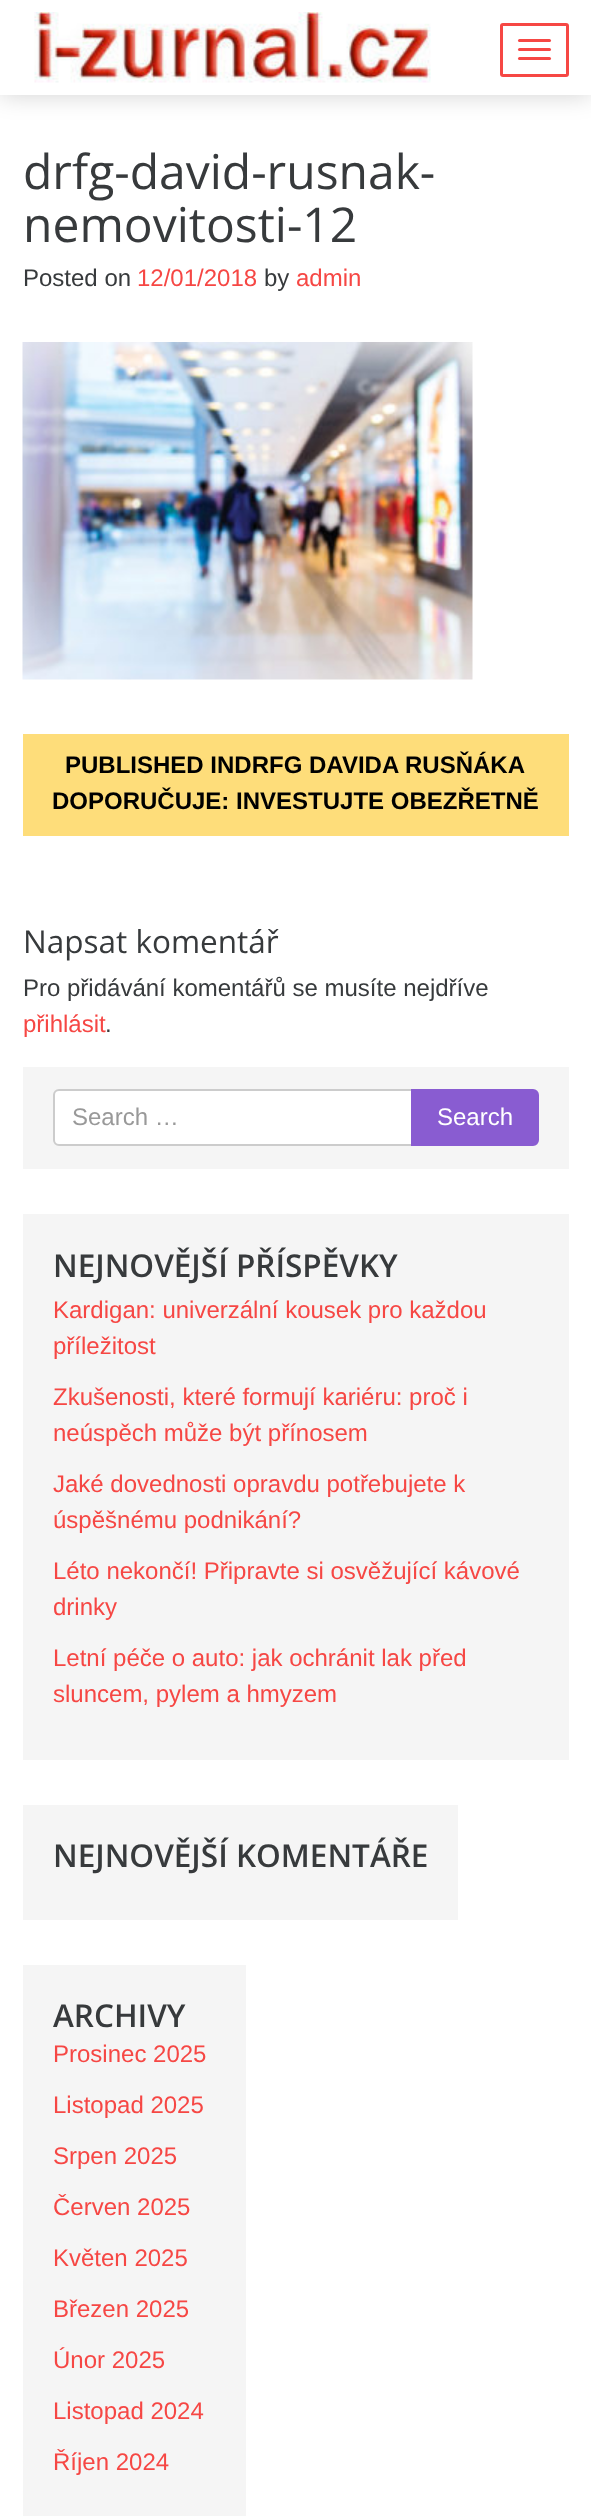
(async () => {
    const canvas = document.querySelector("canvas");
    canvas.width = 591;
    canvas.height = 2516;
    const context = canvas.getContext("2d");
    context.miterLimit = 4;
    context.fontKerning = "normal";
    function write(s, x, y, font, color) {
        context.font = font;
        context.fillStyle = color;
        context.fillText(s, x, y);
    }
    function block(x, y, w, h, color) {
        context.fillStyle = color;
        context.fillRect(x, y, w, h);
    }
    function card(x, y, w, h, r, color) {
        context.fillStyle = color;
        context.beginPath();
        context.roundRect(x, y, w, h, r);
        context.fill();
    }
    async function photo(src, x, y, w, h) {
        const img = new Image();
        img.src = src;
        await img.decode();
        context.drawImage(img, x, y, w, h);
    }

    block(0, 0, 591, 2516, "rgb(255, 255, 255)");
    context.fillStyle = "rgba(0, 0, 0, 0.18)";
    context.filter = "blur(12px)";
    context.beginPath();
    context.rect(0, 0, 591, 95);
    context.fill();
    context.filter = "none";
    block(0, 0, 591, 95, "rgb(255, 255, 255)");
    await photo("media/1.png", 34, 12, 397, 71);
    context.beginPath();
    context.roundRect(501.5, 24.5, 66, 51, 1.5);
    context.strokeStyle = "rgb(246, 71, 68)";
    context.lineWidth = 3;
    context.stroke();
    card(518, 39, 33, 3, 1.5, "rgb(246, 71, 68)");
    card(518, 48, 33, 3, 1.5, "rgb(246, 71, 68)");
    card(518, 57, 33, 3, 1.5, "rgb(246, 71, 68)");
    write("drfg-david-rusnak-", 23, 189, "48px Open Sans", "rgb(55, 58, 60)");
    write("nemovitosti-12", 23, 242, "48px Open Sans", "rgb(55, 58, 60)");
    write("Posted on", 23, 286, "24px Liberation Sans", "rgb(55, 58, 60)");
    write("12/01/2018", 137, 286, "24px Liberation Sans", "rgb(246, 71, 68)");
    write("by", 264, 286, "24px Liberation Sans", "rgb(55, 58, 60)");
    write("admin", 296, 286, "24px Liberation Sans", "rgb(246, 71, 68)");
    await photo("media/2.png", 22, 342, 451, 338);
    block(23, 734, 546, 102, "rgb(254, 221, 122)");
    write("PUBLISHED INDRFG DAVIDA RUSŇÁKA", 65, 773, "bold 24px Liberation Sans", "rgb(0, 0, 0)");
    write("DOPORUČUJE: INVESTUJTE OBEZŘETNĚ", 52, 809, "bold 24px Liberation Sans", "rgb(0, 0, 0)");
    write("Napsat komentář", 23, 953, "31.5px Open Sans", "rgb(55, 58, 60)");
    write("Pro přidávání komentářů se musíte nejdříve", 23, 996, "24px Liberation Sans", "rgb(55, 58, 60)");
    write("přihlásit", 23, 1032, "24px Liberation Sans", "rgb(246, 71, 68)");
    write(".", 105, 1032, "24px Liberation Sans", "rgb(55, 58, 60)");
    block(23, 1067, 546, 102, "rgb(245, 245, 245)");
    context.fillStyle = "rgb(255, 255, 255)";
    context.beginPath();
    context.roundRect(54, 1090, 358, 55, [5, 0, 0, 5]);
    context.fill();
    context.strokeStyle = "rgb(204, 204, 204)";
    context.lineWidth = 2;
    context.stroke();
    write("Search …", 72, 1125, "24px Liberation Sans", "rgb(153, 153, 153)");
    context.fillStyle = "rgb(137, 92, 209)";
    context.beginPath();
    context.roundRect(412, 1090, 126, 55, [0, 5, 5, 0]);
    context.fill();
    context.strokeStyle = "rgb(137, 92, 209)";
    context.stroke();
    write("Search", 437, 1125, "24px Liberation Sans", "rgb(255, 255, 255)");
    block(23, 1214, 546, 546, "rgb(245, 245, 245)");
    write("NEJNOVĚJŠÍ PŘÍSPĚVKY", 53, 1277, "600 31.5px Open Sans", "rgb(55, 58, 60)");
    write("Kardigan: univerzální kousek pro každou", 53, 1318, "24px Liberation Sans", "rgb(246, 71, 68)");
    write("příležitost", 53, 1354, "24px Liberation Sans", "rgb(246, 71, 68)");
    write("Zkušenosti, které formují kariéru: proč i", 53, 1405, "24px Liberation Sans", "rgb(246, 71, 68)");
    write("neúspěch může být přínosem", 53, 1441, "24px Liberation Sans", "rgb(246, 71, 68)");
    write("Jaké dovednosti opravdu potřebujete k", 53, 1492, "24px Liberation Sans", "rgb(246, 71, 68)");
    write("úspěšnému podnikání?", 53, 1528, "24px Liberation Sans", "rgb(246, 71, 68)");
    write("Léto nekončí! Připravte si osvěžující kávové", 53, 1579, "24px Liberation Sans", "rgb(246, 71, 68)");
    write("drinky￼", 53, 1615, "24px Liberation Sans", "rgb(246, 71, 68)");
    write("Letní péče o auto: jak ochránit lak před", 53, 1666, "24px Liberation Sans", "rgb(246, 71, 68)");
    write("sluncem, pylem a hmyzem", 53, 1702, "24px Liberation Sans", "rgb(246, 71, 68)");
    block(23, 1805, 435, 115, "rgb(245, 245, 245)");
    write("NEJNOVĚJŠÍ KOMENTÁŘE", 53, 1867, "600 31.5px Open Sans", "rgb(55, 58, 60)");
    block(23, 1965, 223, 551, "rgb(245, 245, 245)");
    write("ARCHIVY", 53, 2027, "600 31.5px Open Sans", "rgb(55, 58, 60)");
    write("Prosinec 2025", 53, 2062, "24px Liberation Sans", "rgb(246, 71, 68)");
    write("Listopad 2025", 53, 2113, "24px Liberation Sans", "rgb(246, 71, 68)");
    write("Srpen 2025", 53, 2164, "24px Liberation Sans", "rgb(246, 71, 68)");
    write("Červen 2025", 53, 2215, "24px Liberation Sans", "rgb(246, 71, 68)");
    write("Květen 2025", 53, 2266, "24px Liberation Sans", "rgb(246, 71, 68)");
    write("Březen 2025", 53, 2317, "24px Liberation Sans", "rgb(246, 71, 68)");
    write("Únor 2025", 53, 2368, "24px Liberation Sans", "rgb(246, 71, 68)");
    write("Listopad 2024", 53, 2419, "24px Liberation Sans", "rgb(246, 71, 68)");
    write("Říjen 2024", 53, 2470, "24px Liberation Sans", "rgb(246, 71, 68)");
})();
